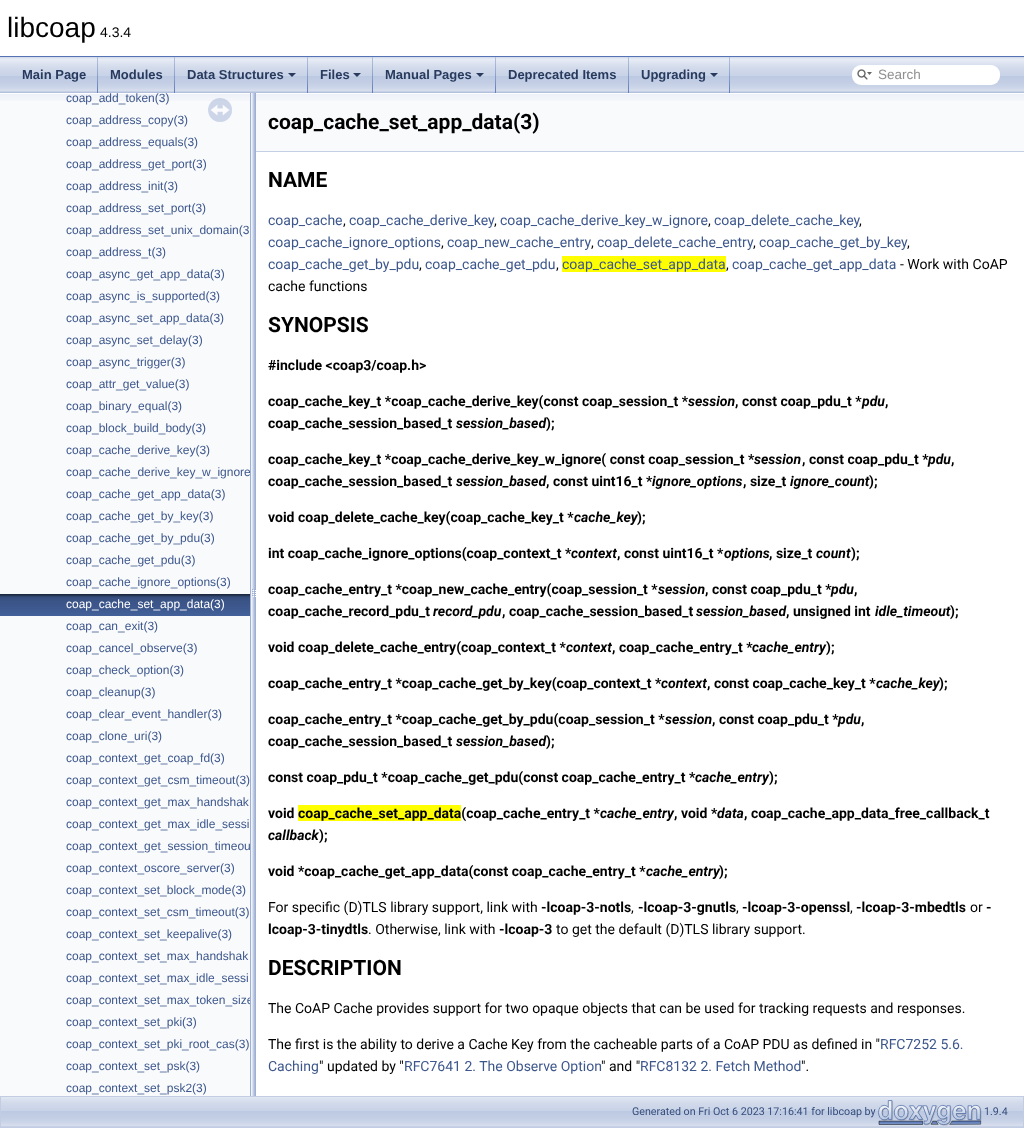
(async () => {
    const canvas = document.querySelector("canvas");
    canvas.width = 1024;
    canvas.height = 1128;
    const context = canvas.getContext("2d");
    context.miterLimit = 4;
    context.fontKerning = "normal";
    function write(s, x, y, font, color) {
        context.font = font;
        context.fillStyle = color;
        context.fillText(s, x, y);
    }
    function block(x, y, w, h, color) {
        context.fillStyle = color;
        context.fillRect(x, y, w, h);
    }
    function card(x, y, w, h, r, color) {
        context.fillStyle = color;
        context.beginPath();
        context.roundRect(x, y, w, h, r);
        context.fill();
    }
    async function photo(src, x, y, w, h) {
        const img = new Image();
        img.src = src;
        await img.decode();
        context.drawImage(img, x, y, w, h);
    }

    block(0, 0, 1024, 1128, "rgb(255, 255, 255)");
    block(0, 56, 1024, 1, "rgb(83, 115, 180)");
    write("libcoap", 7, 37, "28px Liberation Sans", "rgb(0, 0, 0)");
    write("4.3.4", 100, 37, "14px Liberation Sans", "rgb(0, 0, 0)");
    await photo("media/1.png", 0, 57, 1024, 36);
    await photo("media/2.png", 97, 57, 1, 36);
    write("Main Page", 22, 79, "bold 13px Liberation Sans", "rgb(40, 58, 93)");
    await photo("media/2.png", 174, 57, 1, 36);
    write("Modules", 110, 79, "bold 13px Liberation Sans", "rgb(40, 58, 93)");
    await photo("media/2.png", 307, 57, 1, 36);
    write("Data Structures", 187, 79, "bold 13px Liberation Sans", "rgb(40, 58, 93)");
    context.beginPath();
    context.moveTo(288, 73);
    context.lineTo(296, 73);
    context.lineTo(292, 77);
    context.closePath();
    context.fill();
    await photo("media/2.png", 372, 57, 1, 36);
    write("Files", 320, 79, "bold 13px Liberation Sans", "rgb(40, 58, 93)");
    context.beginPath();
    context.moveTo(353, 73);
    context.lineTo(361, 73);
    context.lineTo(357, 77);
    context.closePath();
    context.fill();
    await photo("media/2.png", 495, 57, 1, 36);
    write("Manual Pages", 385, 79, "bold 13px Liberation Sans", "rgb(40, 58, 93)");
    context.beginPath();
    context.moveTo(476, 73);
    context.lineTo(484, 73);
    context.lineTo(480, 77);
    context.closePath();
    context.fill();
    await photo("media/2.png", 628, 57, 1, 36);
    write("Deprecated Items", 508, 79, "bold 13px Liberation Sans", "rgb(40, 58, 93)");
    await photo("media/2.png", 729, 57, 1, 36);
    write("Upgrading", 641, 79, "bold 13px Liberation Sans", "rgb(40, 58, 93)");
    context.beginPath();
    context.moveTo(710, 73);
    context.lineTo(718, 73);
    context.lineTo(714, 77);
    context.closePath();
    context.fill();
    card(852, 65, 148, 20, 9, "rgb(255, 255, 255)");
    await photo("media/3.png", 857, 69, 15, 11);
    write("Search", 878, 79, "13.5px Liberation Sans", "rgb(144, 144, 144)");
    block(0, 101, 250, 995, "rgb(249, 250, 252)");
    await photo("media/4.png", 0, 93, 250, 8);
    write("coap_add_token(3)", 66, 102, "12px Liberation Sans", "rgb(61, 87, 140)");
    write("coap_address_copy(3)", 66, 124, "12px Liberation Sans", "rgb(61, 87, 140)");
    write("coap_address_equals(3)", 66, 146, "12px Liberation Sans", "rgb(61, 87, 140)");
    write("coap_address_get_port(3)", 66, 168, "12px Liberation Sans", "rgb(61, 87, 140)");
    write("coap_address_init(3)", 66, 190, "12px Liberation Sans", "rgb(61, 87, 140)");
    write("coap_address_set_port(3)", 66, 212, "12px Liberation Sans", "rgb(61, 87, 140)");
    write("coap_address_set_unix_domain(3", 66, 234, "12px Liberation Sans", "rgb(61, 87, 140)");
    write("coap_address_t(3)", 66, 256, "12px Liberation Sans", "rgb(61, 87, 140)");
    write("coap_async_get_app_data(3)", 66, 278, "12px Liberation Sans", "rgb(61, 87, 140)");
    write("coap_async_is_supported(3)", 66, 300, "12px Liberation Sans", "rgb(61, 87, 140)");
    write("coap_async_set_app_data(3)", 66, 322, "12px Liberation Sans", "rgb(61, 87, 140)");
    write("coap_async_set_delay(3)", 66, 344, "12px Liberation Sans", "rgb(61, 87, 140)");
    write("coap_async_trigger(3)", 66, 366, "12px Liberation Sans", "rgb(61, 87, 140)");
    write("coap_attr_get_value(3)", 66, 388, "12px Liberation Sans", "rgb(61, 87, 140)");
    write("coap_binary_equal(3)", 66, 410, "12px Liberation Sans", "rgb(61, 87, 140)");
    write("coap_block_build_body(3)", 66, 432, "12px Liberation Sans", "rgb(61, 87, 140)");
    write("coap_cache_derive_key(3)", 66, 454, "12px Liberation Sans", "rgb(61, 87, 140)");
    write("coap_cache_derive_key_w_ignore", 66, 476, "12px Liberation Sans", "rgb(61, 87, 140)");
    write("coap_cache_get_app_data(3)", 66, 498, "12px Liberation Sans", "rgb(61, 87, 140)");
    write("coap_cache_get_by_key(3)", 66, 520, "12px Liberation Sans", "rgb(61, 87, 140)");
    write("coap_cache_get_by_pdu(3)", 66, 542, "12px Liberation Sans", "rgb(61, 87, 140)");
    write("coap_cache_get_pdu(3)", 66, 564, "12px Liberation Sans", "rgb(61, 87, 140)");
    write("coap_cache_ignore_options(3)", 66, 586, "12px Liberation Sans", "rgb(61, 87, 140)");
    await photo("media/5.png", 0, 594, 250, 22);
    write("coap_cache_set_app_data(3)", 66, 608, "12px Liberation Sans", "rgb(255, 255, 255)");
    write("coap_can_exit(3)", 66, 630, "12px Liberation Sans", "rgb(61, 87, 140)");
    write("coap_cancel_observe(3)", 66, 652, "12px Liberation Sans", "rgb(61, 87, 140)");
    write("coap_check_option(3)", 66, 674, "12px Liberation Sans", "rgb(61, 87, 140)");
    write("coap_cleanup(3)", 66, 696, "12px Liberation Sans", "rgb(61, 87, 140)");
    write("coap_clear_event_handler(3)", 66, 718, "12px Liberation Sans", "rgb(61, 87, 140)");
    write("coap_clone_uri(3)", 66, 740, "12px Liberation Sans", "rgb(61, 87, 140)");
    write("coap_context_get_coap_fd(3)", 66, 762, "12px Liberation Sans", "rgb(61, 87, 140)");
    write("coap_context_get_csm_timeout(3)", 66, 784, "12px Liberation Sans", "rgb(61, 87, 140)");
    write("coap_context_get_max_handshak", 66, 806, "12px Liberation Sans", "rgb(61, 87, 140)");
    write("coap_context_get_max_idle_sessi", 66, 828, "12px Liberation Sans", "rgb(61, 87, 140)");
    write("coap_context_get_session_timeou", 66, 850, "12px Liberation Sans", "rgb(61, 87, 140)");
    write("coap_context_oscore_server(3)", 66, 872, "12px Liberation Sans", "rgb(61, 87, 140)");
    write("coap_context_set_block_mode(3)", 66, 894, "12px Liberation Sans", "rgb(61, 87, 140)");
    write("coap_context_set_csm_timeout(3)", 66, 916, "12px Liberation Sans", "rgb(61, 87, 140)");
    write("coap_context_set_keepalive(3)", 66, 938, "12px Liberation Sans", "rgb(61, 87, 140)");
    write("coap_context_set_max_handshak", 66, 960, "12px Liberation Sans", "rgb(61, 87, 140)");
    write("coap_context_set_max_idle_sessi", 66, 982, "12px Liberation Sans", "rgb(61, 87, 140)");
    write("coap_context_set_max_token_size", 66, 1004, "12px Liberation Sans", "rgb(61, 87, 140)");
    write("coap_context_set_pki(3)", 66, 1026, "12px Liberation Sans", "rgb(61, 87, 140)");
    write("coap_context_set_pki_root_cas(3)", 66, 1048, "12px Liberation Sans", "rgb(61, 87, 140)");
    write("coap_context_set_psk(3)", 66, 1070, "12px Liberation Sans", "rgb(61, 87, 140)");
    write("coap_context_set_psk2(3)", 66, 1092, "12px Liberation Sans", "rgb(61, 87, 140)");
    await photo("media/6.png", 208, 98, 24, 24);
    await photo("media/7.png", 250, 93, 6, 1003);
    block(256, 101, 768, 50, "rgb(249, 250, 252)");
    await photo("media/8.png", 256, 93, 768, 8);
    block(256, 151, 768, 1, "rgb(196, 207, 229)");
    write("coap_cache_set_app_data(3)", 268, 129, "bold 21px Roboto", "rgb(0, 0, 0)");
    write("NAME", 268, 187, "bold 21px Roboto", "rgb(0, 0, 0)");
    write("coap_cache", 268, 225, "14px Roboto", "rgb(61, 87, 140)");
    write(",", 343, 225, "14px Roboto", "rgb(0, 0, 0)");
    write("coap_cache_derive_key", 349, 225, "14px Roboto", "rgb(61, 87, 140)");
    write("coap_cache_derive_key_w_ignore", 500, 225, "14px Roboto", "rgb(61, 87, 140)");
    write("coap_delete_cache_key", 714, 225, "14px Roboto", "rgb(61, 87, 140)");
    write(",", 494, 225, "14px Roboto", "rgb(0, 0, 0)");
    write(",", 708, 225, "14px Roboto", "rgb(0, 0, 0)");
    write(",", 859, 225, "14px Roboto", "rgb(0, 0, 0)");
    write("coap_cache_ignore_options", 268, 247, "14px Roboto", "rgb(61, 87, 140)");
    write(",", 441, 247, "14px Roboto", "rgb(0, 0, 0)");
    write("coap_new_cache_entry", 447, 247, "14px Roboto", "rgb(61, 87, 140)");
    write("coap_delete_cache_entry", 597, 247, "14px Roboto", "rgb(61, 87, 140)");
    write("coap_cache_get_by_key", 759, 247, "14px Roboto", "rgb(61, 87, 140)");
    write(",", 591, 247, "14px Roboto", "rgb(0, 0, 0)");
    write(",", 753, 247, "14px Roboto", "rgb(0, 0, 0)");
    write(",", 907, 247, "14px Roboto", "rgb(0, 0, 0)");
    write("coap_cache_get_by_pdu", 268, 269, "14px Roboto", "rgb(61, 87, 140)");
    write(",", 419, 269, "14px Roboto", "rgb(0, 0, 0)");
    write("coap_cache_get_pdu", 425, 269, "14px Roboto", "rgb(61, 87, 140)");
    write(",", 556, 269, "14px Roboto", "rgb(0, 0, 0)");
    block(562, 256, 164, 16, "rgb(255, 255, 0)");
    write("coap_cache_set_app_data", 562, 269, "14px Roboto", "rgb(61, 87, 140)");
    write(",", 726, 269, "14px Roboto", "rgb(0, 0, 0)");
    write("coap_cache_get_app_data", 732, 269, "14px Roboto", "rgb(61, 87, 140)");
    write("- Work with CoAP", 900, 269, "14px Roboto", "rgb(0, 0, 0)");
    write("cache functions", 268, 291, "14px Roboto", "rgb(0, 0, 0)");
    write("SYNOPSIS", 268, 332, "bold 21px Roboto", "rgb(0, 0, 0)");
    write("#include <coap3/coap.h>", 268, 370, "bold 14px Roboto", "rgb(0, 0, 0)");
    write("coap_cache_key_t *coap_cache_derive_key(const coap_session_t *", 268, 406, "bold 14px Roboto", "rgb(0, 0, 0)");
    write("session", 688, 406, "italic bold 14px Roboto", "rgb(0, 0, 0)");
    write(", const coap_pdu_t *", 735, 406, "bold 14px Roboto", "rgb(0, 0, 0)");
    write("pdu", 862, 406, "italic bold 14px Roboto", "rgb(0, 0, 0)");
    write(",", 885, 406, "bold 14px Roboto", "rgb(0, 0, 0)");
    write("coap_cache_session_based_t", 268, 428, "bold 14px Roboto", "rgb(0, 0, 0)");
    write("session_based", 456, 428, "italic bold 14px Roboto", "rgb(0, 0, 0)");
    write(");", 546, 428, "bold 14px Roboto", "rgb(0, 0, 0)");
    write("coap_cache_key_t *coap_cache_derive_key_w_ignore( const coap_session_t *", 268, 464, "bold 14px Roboto", "rgb(0, 0, 0)");
    write("session", 754, 464, "italic bold 14px Roboto", "rgb(0, 0, 0)");
    write(", const coap_pdu_t *", 802, 464, "bold 14px Roboto", "rgb(0, 0, 0)");
    write("pdu", 928, 464, "italic bold 14px Roboto", "rgb(0, 0, 0)");
    write(",", 951, 464, "bold 14px Roboto", "rgb(0, 0, 0)");
    write("coap_cache_session_based_t", 268, 486, "bold 14px Roboto", "rgb(0, 0, 0)");
    write("session_based", 456, 486, "italic bold 14px Roboto", "rgb(0, 0, 0)");
    write(", const uint16_t *", 546, 486, "bold 14px Roboto", "rgb(0, 0, 0)");
    write("ignore_options", 652, 486, "italic bold 14px Roboto", "rgb(0, 0, 0)");
    write(", size_t", 743, 486, "bold 14px Roboto", "rgb(0, 0, 0)");
    write("ignore_count", 790, 486, "italic bold 14px Roboto", "rgb(0, 0, 0)");
    write(");", 869, 486, "bold 14px Roboto", "rgb(0, 0, 0)");
    write("void coap_delete_cache_key(coap_cache_key_t *", 268, 522, "bold 14px Roboto", "rgb(0, 0, 0)");
    write("cache_key", 574, 522, "italic bold 14px Roboto", "rgb(0, 0, 0)");
    write(");", 637, 522, "bold 14px Roboto", "rgb(0, 0, 0)");
    write("int coap_cache_ignore_options(coap_context_t *", 268, 558, "bold 14px Roboto", "rgb(0, 0, 0)");
    write("context", 571, 558, "italic bold 14px Roboto", "rgb(0, 0, 0)");
    write(", const uint16_t *", 617, 558, "bold 14px Roboto", "rgb(0, 0, 0)");
    write("options", 724, 558, "italic bold 14px Roboto", "rgb(0, 0, 0)");
    write(", size_t", 769, 558, "bold 14px Roboto", "rgb(0, 0, 0)");
    write("count", 816, 558, "italic bold 14px Roboto", "rgb(0, 0, 0)");
    write(");", 851, 558, "bold 14px Roboto", "rgb(0, 0, 0)");
    write("coap_cache_entry_t *coap_new_cache_entry(coap_session_t *", 268, 594, "bold 14px Roboto", "rgb(0, 0, 0)");
    write("session", 658, 594, "italic bold 14px Roboto", "rgb(0, 0, 0)");
    write(", const coap_pdu_t *", 705, 594, "bold 14px Roboto", "rgb(0, 0, 0)");
    write("pdu", 831, 594, "italic bold 14px Roboto", "rgb(0, 0, 0)");
    write(",", 854, 594, "bold 14px Roboto", "rgb(0, 0, 0)");
    write("coap_cache_record_pdu_t", 268, 616, "bold 14px Roboto", "rgb(0, 0, 0)");
    write("record_pdu", 433, 616, "italic bold 14px Roboto", "rgb(0, 0, 0)");
    write(", coap_cache_session_based_t", 502, 616, "bold 14px Roboto", "rgb(0, 0, 0)");
    write("session_based", 696, 616, "italic bold 14px Roboto", "rgb(0, 0, 0)");
    write(", unsigned int", 786, 616, "bold 14px Roboto", "rgb(0, 0, 0)");
    write("idle_timeout", 875, 616, "italic bold 14px Roboto", "rgb(0, 0, 0)");
    write(");", 950, 616, "bold 14px Roboto", "rgb(0, 0, 0)");
    write("void coap_delete_cache_entry(coap_context_t *", 268, 652, "bold 14px Roboto", "rgb(0, 0, 0)");
    write("context", 566, 652, "italic bold 14px Roboto", "rgb(0, 0, 0)");
    write(", coap_cache_entry_t *", 612, 652, "bold 14px Roboto", "rgb(0, 0, 0)");
    write("cache_entry", 752, 652, "italic bold 14px Roboto", "rgb(0, 0, 0)");
    write(");", 826, 652, "bold 14px Roboto", "rgb(0, 0, 0)");
    write("coap_cache_entry_t *coap_cache_get_by_key(coap_context_t *", 268, 688, "bold 14px Roboto", "rgb(0, 0, 0)");
    write("context", 661, 688, "italic bold 14px Roboto", "rgb(0, 0, 0)");
    write(", const coap_cache_key_t *", 707, 688, "bold 14px Roboto", "rgb(0, 0, 0)");
    write("cache_key", 876, 688, "italic bold 14px Roboto", "rgb(0, 0, 0)");
    write(");", 939, 688, "bold 14px Roboto", "rgb(0, 0, 0)");
    write("coap_cache_entry_t *coap_cache_get_by_pdu(coap_session_t *", 268, 724, "bold 14px Roboto", "rgb(0, 0, 0)");
    write("session", 665, 724, "italic bold 14px Roboto", "rgb(0, 0, 0)");
    write(", const coap_pdu_t *", 712, 724, "bold 14px Roboto", "rgb(0, 0, 0)");
    write("pdu", 838, 724, "italic bold 14px Roboto", "rgb(0, 0, 0)");
    write(",", 861, 724, "bold 14px Roboto", "rgb(0, 0, 0)");
    write("coap_cache_session_based_t", 268, 746, "bold 14px Roboto", "rgb(0, 0, 0)");
    write("session_based", 456, 746, "italic bold 14px Roboto", "rgb(0, 0, 0)");
    write(");", 546, 746, "bold 14px Roboto", "rgb(0, 0, 0)");
    write("const coap_pdu_t *coap_cache_get_pdu(const coap_cache_entry_t *", 268, 782, "bold 14px Roboto", "rgb(0, 0, 0)");
    write("cache_entry", 695, 782, "italic bold 14px Roboto", "rgb(0, 0, 0)");
    write(");", 769, 782, "bold 14px Roboto", "rgb(0, 0, 0)");
    write("void", 268, 818, "bold 14px Roboto", "rgb(0, 0, 0)");
    block(298, 805, 163, 16, "rgb(255, 255, 0)");
    write("coap_cache_set_app_data(coap_cache_entry_t *", 298, 818, "bold 14px Roboto", "rgb(0, 0, 0)");
    write("cache_entry", 600, 818, "italic bold 14px Roboto", "rgb(0, 0, 0)");
    write(", void *", 674, 818, "bold 14px Roboto", "rgb(0, 0, 0)");
    write("data", 717, 818, "italic bold 14px Roboto", "rgb(0, 0, 0)");
    write(", coap_cache_app_data_free_callback_t", 744, 818, "bold 14px Roboto", "rgb(0, 0, 0)");
    write("callback", 268, 840, "italic bold 14px Roboto", "rgb(0, 0, 0)");
    write(");", 319, 840, "bold 14px Roboto", "rgb(0, 0, 0)");
    write("void *coap_cache_get_app_data(const coap_cache_entry_t *", 268, 876, "bold 14px Roboto", "rgb(0, 0, 0)");
    write("cache_entry", 646, 876, "italic bold 14px Roboto", "rgb(0, 0, 0)");
    write(");", 719, 876, "bold 14px Roboto", "rgb(0, 0, 0)");
    write("For specific (D)TLS library support, link with", 268, 912, "14px Roboto", "rgb(0, 0, 0)");
    write("-lcoap-3-notls", 541, 912, "bold 14px Roboto", "rgb(0, 0, 0)");
    write("-lcoap-3-gnutls", 638, 912, "bold 14px Roboto", "rgb(0, 0, 0)");
    write("-lcoap-3-openssl", 742, 912, "bold 14px Roboto", "rgb(0, 0, 0)");
    write("-lcoap-3-mbedtls", 856, 912, "bold 14px Roboto", "rgb(0, 0, 0)");
    write("or", 970, 912, "14px Roboto", "rgb(0, 0, 0)");
    write("-", 986, 912, "bold 14px Roboto", "rgb(0, 0, 0)");
    write(",", 631, 912, "14px Roboto", "rgb(0, 0, 0)");
    write(",", 736, 912, "14px Roboto", "rgb(0, 0, 0)");
    write(",", 850, 912, "14px Roboto", "rgb(0, 0, 0)");
    write("lcoap-3-tinydtls", 268, 934, "bold 14px Roboto", "rgb(0, 0, 0)");
    write(". Otherwise, link with", 368, 934, "14px Roboto", "rgb(0, 0, 0)");
    write("-lcoap-3", 499, 934, "bold 14px Roboto", "rgb(0, 0, 0)");
    write("to get the default (D)TLS library support.", 556, 934, "14px Roboto", "rgb(0, 0, 0)");
    write("DESCRIPTION", 268, 975, "bold 21px Roboto", "rgb(0, 0, 0)");
    write("The CoAP Cache provides support for two opaque objects that can be used for tracking requests and responses.", 268, 1013, "14px Roboto", "rgb(0, 0, 0)");
    write("The first is the ability to derive a Cache Key from the cacheable parts of a CoAP PDU as defined in \"", 268, 1049, "14px Roboto", "rgb(0, 0, 0)");
    write("RFC7252 5.6.", 880, 1049, "14px Roboto", "rgb(61, 87, 140)");
    write("Caching", 268, 1071, "14px Roboto", "rgb(61, 87, 140)");
    write("\" updated by \"", 319, 1071, "14px Roboto", "rgb(0, 0, 0)");
    write("RFC7641 2. The Observe Option", 404, 1071, "14px Roboto", "rgb(61, 87, 140)");
    write("\" and \"", 601, 1071, "14px Roboto", "rgb(0, 0, 0)");
    write("RFC8132 2. Fetch Method", 640, 1071, "14px Roboto", "rgb(61, 87, 140)");
    write("\".", 801, 1071, "14px Roboto", "rgb(0, 0, 0)");
    await photo("media/9.png", 1, 1097, 1022, 30);
    context.strokeStyle = "rgb(194, 205, 228)";
    context.strokeRect(0.5, 1096.5, 1023, 31);
    write("Generated on Fri Oct 6 2023 17:16:41 for libcoap by", 632, 1115, "10.7px Roboto", "rgb(54, 77, 124)");
    await photo("media/10.png", 878, 1100, 104, 26);
    write("1.9.4", 984, 1115, "10.7px Roboto", "rgb(54, 77, 124)");
})();
